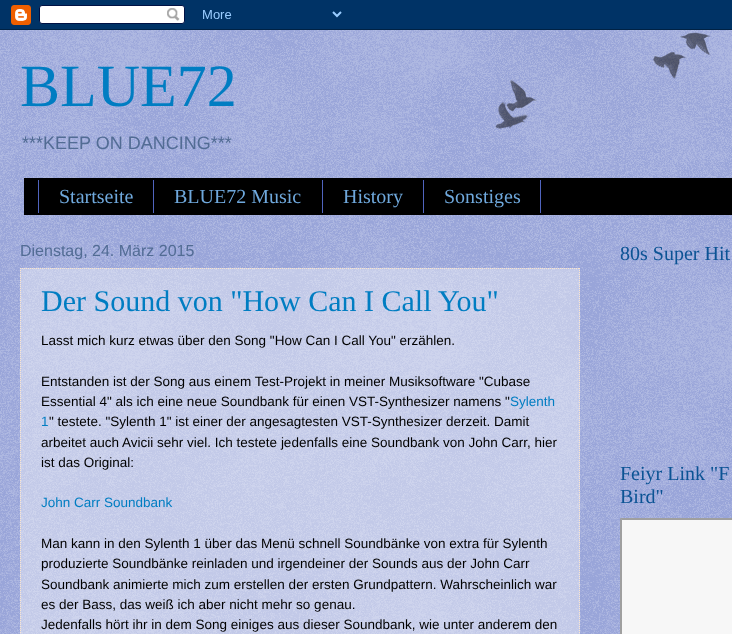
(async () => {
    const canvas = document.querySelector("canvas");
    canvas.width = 732;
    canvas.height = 634;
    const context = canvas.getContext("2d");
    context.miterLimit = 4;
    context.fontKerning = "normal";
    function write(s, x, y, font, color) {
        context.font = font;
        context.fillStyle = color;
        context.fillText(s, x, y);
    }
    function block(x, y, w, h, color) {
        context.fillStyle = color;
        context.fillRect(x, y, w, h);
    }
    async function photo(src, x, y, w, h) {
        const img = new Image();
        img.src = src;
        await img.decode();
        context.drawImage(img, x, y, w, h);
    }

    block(0, 0, 732, 634, "rgb(80, 100, 190)");
    await photo("media/1.png", 0, 30, 732, 604);
    await photo("media/2.png", 0, 0, 732, 30);
    await photo("media/3.png", 495, 32, 216, 97);
    write("BLUE72", 20, 106, "60px Liberation Serif", "rgb(0, 125, 194)");
    write("***KEEP ON DANCING***", 22, 149, "18px Liberation Sans", "rgb(82, 108, 148)");
    block(24, 178, 708, 37, "rgb(0, 0, 0)");
    block(153, 180, 1, 33, "rgb(80, 100, 190)");
    block(38, 180, 1, 33, "rgb(80, 100, 190)");
    write("Startseite", 59, 203, "20px Liberation Serif", "rgb(111, 168, 220)");
    block(322, 180, 1, 33, "rgb(80, 100, 190)");
    write("BLUE72 Music", 174, 203, "20px Liberation Serif", "rgb(111, 168, 220)");
    block(423, 180, 1, 33, "rgb(80, 100, 190)");
    write("History", 343, 203, "20px Liberation Serif", "rgb(111, 168, 220)");
    block(540, 180, 1, 33, "rgb(80, 100, 190)");
    write("Sonstiges", 444, 203, "20px Liberation Serif", "rgb(111, 168, 220)");
    write("Dienstag, 24. März 2015", 20, 256, "16px Liberation Sans", "rgb(82, 108, 148)");
    block(20, 268, 560, 366, "rgba(255, 255, 255, 0.4)");
    context.beginPath();
    context.moveTo(20, 268.5);
    context.lineTo(580, 268.5);
    context.strokeStyle = "rgb(252, 229, 205)";
    context.setLineDash([1, 1]);
    context.stroke();
    context.beginPath();
    context.moveTo(579.5, 268);
    context.lineTo(579.5, 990);
    context.stroke();
    context.beginPath();
    context.moveTo(20.5, 268);
    context.lineTo(20.5, 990);
    context.stroke();
    write("Der Sound von \"How Can I Call You\"", 41, 311, "30px Liberation Serif", "rgb(0, 125, 194)");
    write("Lasst mich kurz etwas über den Song \"How Can I Call You\" erzählen.", 41, 345, "13.5px Liberation Sans", "rgb(0, 0, 0)");
    write("Entstanden ist der Song aus einem Test-Projekt in meiner Musiksoftware \"Cubase", 41, 386, "13.5px Liberation Sans", "rgb(0, 0, 0)");
    write("Essential 4\" als ich eine neue Soundbank für einen VST-Synthesizer namens \"", 41, 406, "13.5px Liberation Sans", "rgb(0, 0, 0)");
    write("Sylenth", 510, 406, "13.5px Liberation Sans", "rgb(0, 125, 194)");
    write("1", 41, 426, "13.5px Liberation Sans", "rgb(0, 125, 194)");
    write("\" testete. \"Sylenth 1\" ist einer der angesagtesten VST-Synthesizer derzeit. Damit", 49, 426, "13.5px Liberation Sans", "rgb(0, 0, 0)");
    write("arbeitet auch Avicii sehr viel. Ich testete jedenfalls eine Soundbank von John Carr, hier", 41, 447, "13.5px Liberation Sans", "rgb(0, 0, 0)");
    write("ist das Original:", 41, 467, "13.5px Liberation Sans", "rgb(0, 0, 0)");
    write("John Carr Soundbank", 41, 507, "13.5px Liberation Sans", "rgb(0, 125, 194)");
    write("Man kann in den Sylenth 1 über das Menü schnell Soundbänke von extra für Sylenth", 41, 548, "13.5px Liberation Sans", "rgb(0, 0, 0)");
    write("produzierte Soundbänke reinladen und irgendeiner der Sounds aus der John Carr", 41, 568, "13.5px Liberation Sans", "rgb(0, 0, 0)");
    write("Soundbank animierte mich zum erstellen der ersten Grundpattern. Wahrscheinlich war", 41, 589, "13.5px Liberation Sans", "rgb(0, 0, 0)");
    write("es der Bass, das weiß ich aber nicht mehr so genau.", 41, 609, "13.5px Liberation Sans", "rgb(0, 0, 0)");
    write("Jedenfalls hört ihr in dem Song einiges aus dieser Soundbank, wie unter anderem den", 41, 629, "13.5px Liberation Sans", "rgb(0, 0, 0)");
    write("80s Super Hit", 620, 260, "20px Liberation Serif", "rgb(11, 83, 148)");
    write("Feiyr Link \"F", 620, 480, "20px Liberation Serif", "rgb(11, 83, 148)");
    write("Bird\"", 620, 503, "20px Liberation Serif", "rgb(11, 83, 148)");
    context.fillStyle = "rgb(159, 159, 159)";
    context.beginPath();
    context.moveTo(620, 518);
    context.lineTo(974, 518);
    context.lineTo(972, 520);
    context.lineTo(622, 520);
    context.closePath();
    context.fill();
    context.beginPath();
    context.moveTo(620, 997);
    context.lineTo(620, 518);
    context.lineTo(622, 520);
    context.lineTo(622, 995);
    context.closePath();
    context.fill();
    block(622, 520, 110, 114, "rgb(247, 247, 247)");
})();
